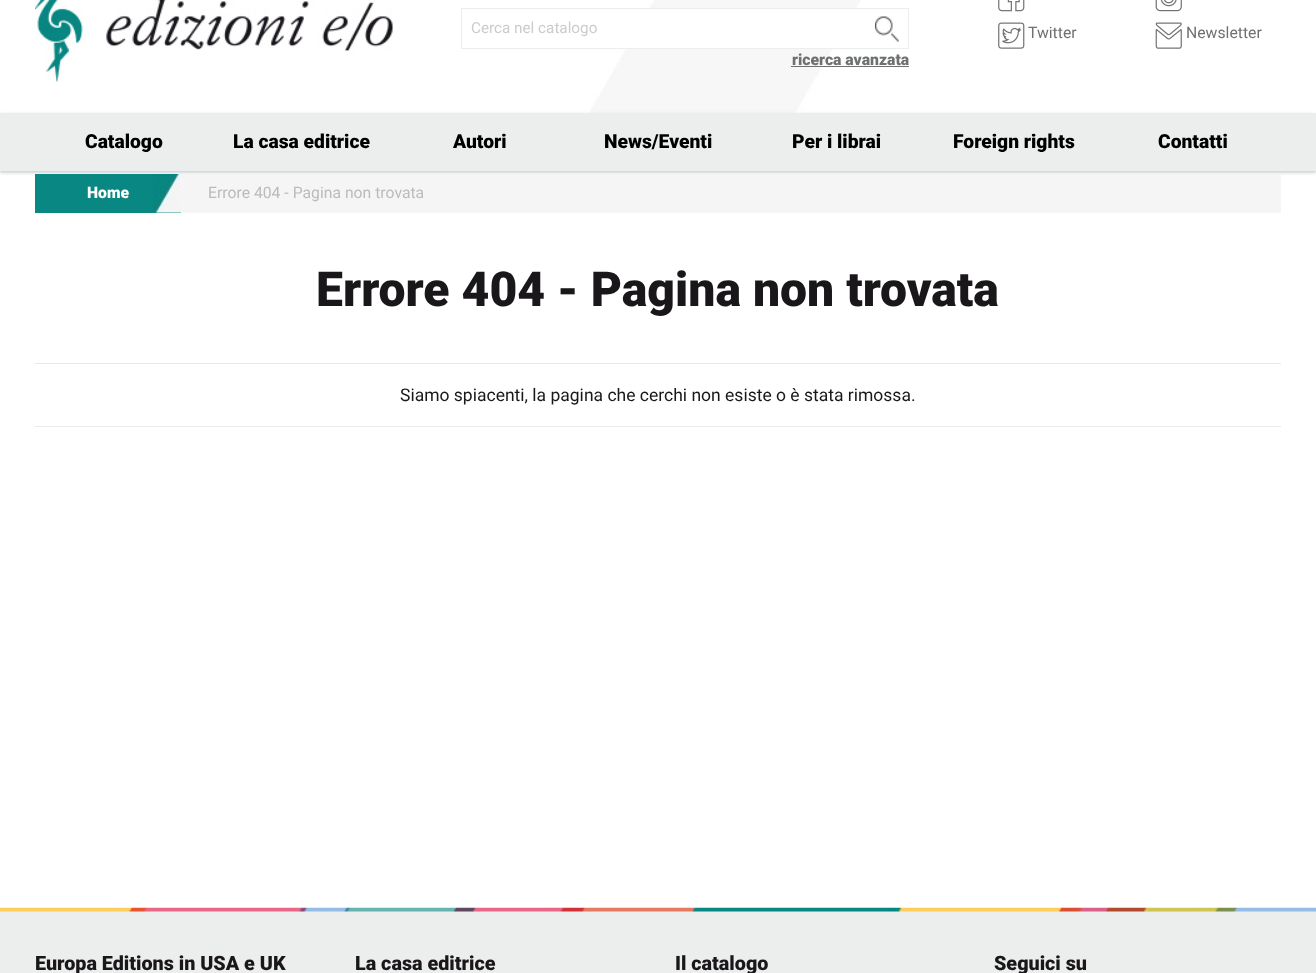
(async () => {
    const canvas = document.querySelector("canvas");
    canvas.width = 1316;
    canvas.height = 973;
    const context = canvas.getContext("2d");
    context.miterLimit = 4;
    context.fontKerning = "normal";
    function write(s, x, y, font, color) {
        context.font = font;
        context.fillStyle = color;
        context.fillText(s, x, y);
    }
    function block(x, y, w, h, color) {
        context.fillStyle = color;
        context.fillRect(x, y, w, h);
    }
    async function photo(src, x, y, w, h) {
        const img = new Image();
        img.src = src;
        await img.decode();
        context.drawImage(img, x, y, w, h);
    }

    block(0, 0, 1316, 973, "rgb(255, 255, 255)");
    await photo("media/1.png", 590, 0, 271, 113);
    await photo("media/2.png", 35, 0, 358, 82);
    block(626, 9, 208, 39, "rgb(255, 255, 255)");
    block(461, 8, 448, 1, "rgb(236, 237, 237)");
    block(461, 48, 373, 1, "rgb(236, 237, 237)");
    block(461, 8, 1, 41, "rgb(236, 237, 237)");
    write("Cerca nel catalogo", 471, 33, "15.25px Roboto", "rgb(204, 204, 204)");
    block(834, 9, 22, 38, "rgb(255, 255, 255)");
    await photo("media/3.png", 875, 16, 24, 26);
    block(908, 8, 1, 41, "rgb(236, 237, 237)");
    block(834, 48, 75, 1, "rgb(236, 237, 237)");
    write("ricerca avanzata", 792, 65, "900 15.75px Roboto", "rgb(111, 112, 114)");
    block(791, 66, 118, 1, "rgb(111, 112, 114)");
    await photo("media/4.png", 998, 0, 27, 12);
    await photo("media/5.png", 998, 22, 27, 27);
    write("Twitter", 1028, 38, "15.75px Roboto", "rgb(111, 112, 114)");
    await photo("media/6.png", 1155, 0, 27, 12);
    await photo("media/7.png", 1155, 22, 27, 27);
    write("Newsletter", 1186, 38, "15.75px Roboto", "rgb(111, 112, 114)");
    context.fillStyle = "rgba(0, 0, 0, 0.12)";
    context.filter = "blur(1px)";
    context.beginPath();
    context.rect(0, 114, 1316, 59);
    context.fill();
    context.filter = "none";
    context.fillStyle = "rgba(0, 0, 0, 0.06)";
    context.filter = "blur(2px)";
    context.beginPath();
    context.rect(0, 114, 1316, 59);
    context.fill();
    context.filter = "none";
    block(0, 113, 1316, 58, "rgb(236, 237, 237)");
    write("Catalogo", 85, 148, "900 19.25px Roboto", "rgb(0, 0, 0)");
    write("La casa editrice", 233, 148, "900 19.25px Roboto", "rgb(0, 0, 0)");
    write("Autori", 453, 148, "900 19.25px Roboto", "rgb(0, 0, 0)");
    write("News/Eventi", 604, 148, "900 19.25px Roboto", "rgb(0, 0, 0)");
    write("Per i librai", 792, 148, "900 19.25px Roboto", "rgb(0, 0, 0)");
    write("Foreign rights", 953, 148, "900 19.25px Roboto", "rgb(0, 0, 0)");
    write("Contatti", 1158, 148, "900 19.25px Roboto", "rgb(0, 0, 0)");
    block(181, 174, 1100, 39, "rgb(245, 245, 245)");
    block(35, 174, 146, 39, "rgb(9, 135, 130)");
    await photo("media/8.png", 153, 174, 28, 39);
    write("Home", 87, 198, "900 15.75px Roboto", "rgb(255, 255, 255)");
    write("Errore 404 - Pagina non trovata", 208, 198, "15.75px Roboto", "rgb(187, 187, 187)");
    write("Errore 404 - Pagina non trovata", 316, 306, "900 48.1px Roboto", "rgb(26, 23, 27)");
    block(35, 363, 1246, 1, "rgb(233, 233, 233)");
    block(35, 426, 1246, 1, "rgb(233, 233, 233)");
    write("Siamo spiacenti, la pagina che cerchi non esiste o è stata rimossa.", 400, 401, "17.5px Roboto", "rgb(26, 23, 27)");
    block(0, 911, 1316, 62, "rgb(236, 237, 237)");
    await photo("media/9.png", 0, 907, 1316, 5);
    write("Europa Editions in USA e UK", 35, 970, "900 19.75px Roboto", "rgb(26, 23, 27)");
    write("La casa editrice", 355, 970, "900 19.75px Roboto", "rgb(26, 23, 27)");
    write("Il catalogo", 675, 970, "900 19.75px Roboto", "rgb(26, 23, 27)");
    write("Seguici su", 994, 970, "900 19.75px Roboto", "rgb(26, 23, 27)");
})();
